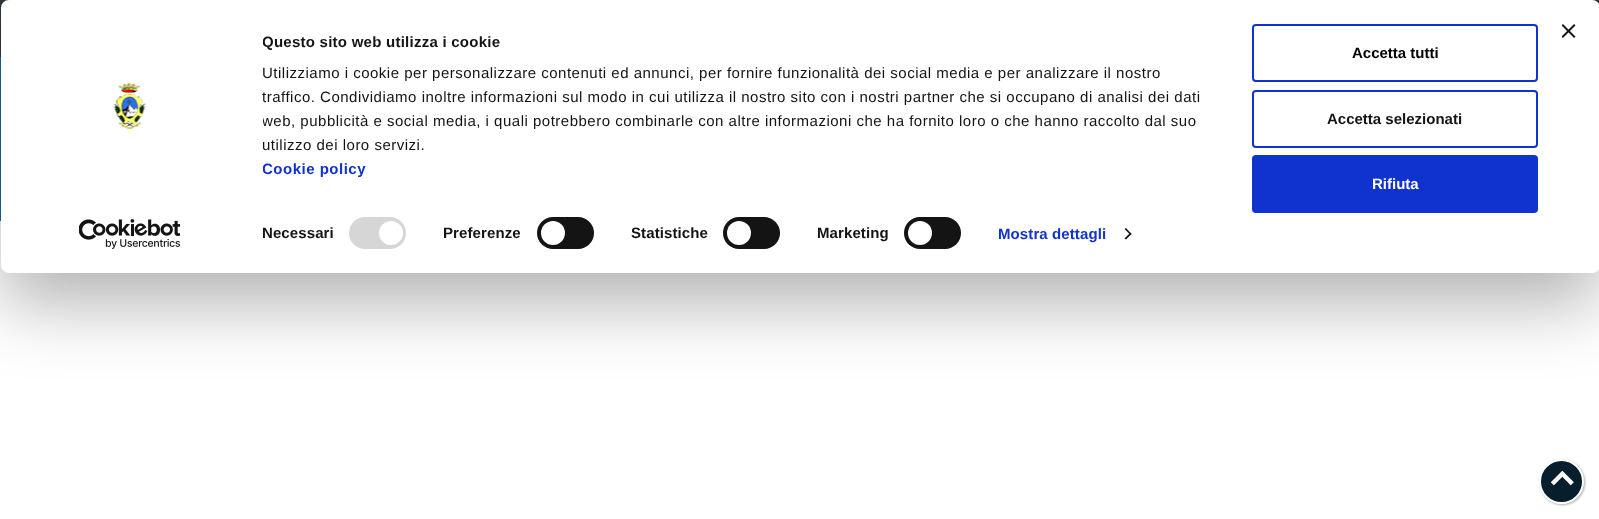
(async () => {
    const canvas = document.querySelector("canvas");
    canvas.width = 1599;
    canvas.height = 519;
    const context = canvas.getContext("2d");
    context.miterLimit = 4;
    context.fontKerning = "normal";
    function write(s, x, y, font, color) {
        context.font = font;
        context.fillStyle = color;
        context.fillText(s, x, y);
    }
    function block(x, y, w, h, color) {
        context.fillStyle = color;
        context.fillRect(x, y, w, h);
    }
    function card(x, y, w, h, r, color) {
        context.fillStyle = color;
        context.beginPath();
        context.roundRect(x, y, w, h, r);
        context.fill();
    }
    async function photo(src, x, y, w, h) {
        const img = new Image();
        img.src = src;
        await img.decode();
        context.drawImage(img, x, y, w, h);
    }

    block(0, 0, 1599, 519, "rgb(255, 255, 255)");
    block(0, 0, 1599, 57, "rgb(48, 55, 61)");
    block(0, 57, 1, 164, "rgb(25, 106, 156)");
    context.fillStyle = "rgba(0, 0, 0, 0.3)";
    context.filter = "blur(35px)";
    context.beginPath();
    context.roundRect(1, 30, 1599, 273, 8);
    context.fill();
    context.filter = "none";
    card(1, 0, 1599, 273, 8, "rgb(255, 255, 255)");
    await photo("media/1.png", 1562, 24, 14, 14);
    await photo("media/2.png", 113, 83, 33, 46);
    await photo("media/3.png", 79, 219, 101, 30);
    context.save();
    context.beginPath();
    context.rect(263, 30, 961, 151);
    context.clip();
    context.letterSpacing = "0.25px";
    write("Questo sito web utilizza i cookie", 262, 47, "bold 15px Liberation Sans", "rgb(20, 20, 20)");
    context.restore();
    context.letterSpacing = "0.5px";
    write("Utilizziamo i cookie per personalizzare contenuti ed annunci, per fornire funzionalità dei social media e per analizzare il nostro", 262, 78, "15px Liberation Sans", "rgb(20, 20, 20)");
    write("traffico. Condividiamo inoltre informazioni sul modo in cui utilizza il nostro sito con i nostri partner che si occupano di analisi dei dati", 262, 102, "15px Liberation Sans", "rgb(20, 20, 20)");
    context.save();
    context.beginPath();
    context.rect(263, 30, 961, 151);
    context.clip();
    write("web, pubblicità e social media, i quali potrebbero combinarle con altre informazioni che ha fornito loro o che hanno raccolto dal suo", 262, 126, "15px Liberation Sans", "rgb(20, 20, 20)");
    context.restore();
    write("utilizzo dei loro servizi.", 262, 150, "15px Liberation Sans", "rgb(20, 20, 20)");
    context.save();
    context.beginPath();
    context.rect(263, 30, 961, 151);
    context.clip();
    write("Cookie policy", 262, 174, "bold 15px Liberation Sans", "rgb(16, 50, 207)");
    context.restore();
    context.letterSpacing = "0.1px";
    write("Necessari", 262, 238, "bold 15px Liberation Sans", "rgb(20, 20, 20)");
    card(349, 217, 57, 32, 16, "rgb(214, 214, 214)");
    context.fillStyle = "rgb(255, 255, 255)";
    context.beginPath();
    context.arc(391, 233, 12, 0, Math.PI * 2);
    context.fill();
    write("Preferenze", 443, 238, "bold 15px Liberation Sans", "rgb(20, 20, 20)");
    card(537, 217, 57, 32, 16, "rgb(20, 20, 20)");
    context.fillStyle = "rgb(255, 255, 255)";
    context.beginPath();
    context.arc(553, 233, 12, 0, Math.PI * 2);
    context.fill();
    write("Statistiche", 631, 238, "bold 15px Liberation Sans", "rgb(20, 20, 20)");
    card(723, 217, 57, 32, 16, "rgb(20, 20, 20)");
    context.fillStyle = "rgb(255, 255, 255)";
    context.beginPath();
    context.arc(739, 233, 12, 0, Math.PI * 2);
    context.fill();
    write("Marketing", 817, 238, "bold 15px Liberation Sans", "rgb(20, 20, 20)");
    card(904, 217, 57, 32, 16, "rgb(20, 20, 20)");
    context.fillStyle = "rgb(255, 255, 255)";
    context.beginPath();
    context.arc(920, 233, 12, 0, Math.PI * 2);
    context.fill();
    write("Mostra dettagli", 998, 239, "bold 15px Liberation Sans", "rgb(16, 50, 207)");
    context.fillStyle = "rgb(20, 20, 20)";
    context.beginPath();
    context.moveTo(1126, 228);
    context.lineTo(1131.5, 234);
    context.lineTo(1130.5, 235);
    context.lineTo(1124.5, 229);
    context.closePath();
    context.fill();
    context.beginPath();
    context.moveTo(1130.5, 232.5);
    context.lineTo(1131.5, 234);
    context.lineTo(1126, 239.5);
    context.lineTo(1124.5, 238.5);
    context.closePath();
    context.fill();
    context.beginPath();
    context.roundRect(1253, 25, 284, 56, 3);
    context.strokeStyle = "rgb(16, 50, 207)";
    context.lineWidth = 2;
    context.stroke();
    context.letterSpacing = "0px";
    write("Accetta tutti", 1352, 58, "bold 15px Liberation Sans", "rgb(0, 0, 0)");
    context.beginPath();
    context.roundRect(1253, 91, 284, 56, 3);
    context.stroke();
    write("Accetta selezionati", 1327, 124, "bold 15px Liberation Sans", "rgb(20, 20, 20)");
    context.fillStyle = "rgb(16, 50, 207)";
    context.beginPath();
    context.roundRect(1253, 156, 284, 56, 3);
    context.fill();
    context.stroke();
    write("Rifiuta", 1372, 189, "bold 15px Liberation Sans", "rgb(255, 255, 255)");
    context.fillStyle = "rgb(170, 170, 170)";
    context.filter = "blur(1px)";
    context.beginPath();
    context.roundRect(1540, 460, 45, 45, 22.5);
    context.fill();
    context.filter = "none";
    context.fillStyle = "rgb(7, 30, 44)";
    context.beginPath();
    context.arc(1561.5, 481.5, 21.5, 0, Math.PI * 2);
    context.fill();
    context.strokeStyle = "rgb(255, 255, 255)";
    context.stroke();
    write("⏷", 1551, 488, "bold 22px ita", "rgb(255, 255, 255)");
})();
